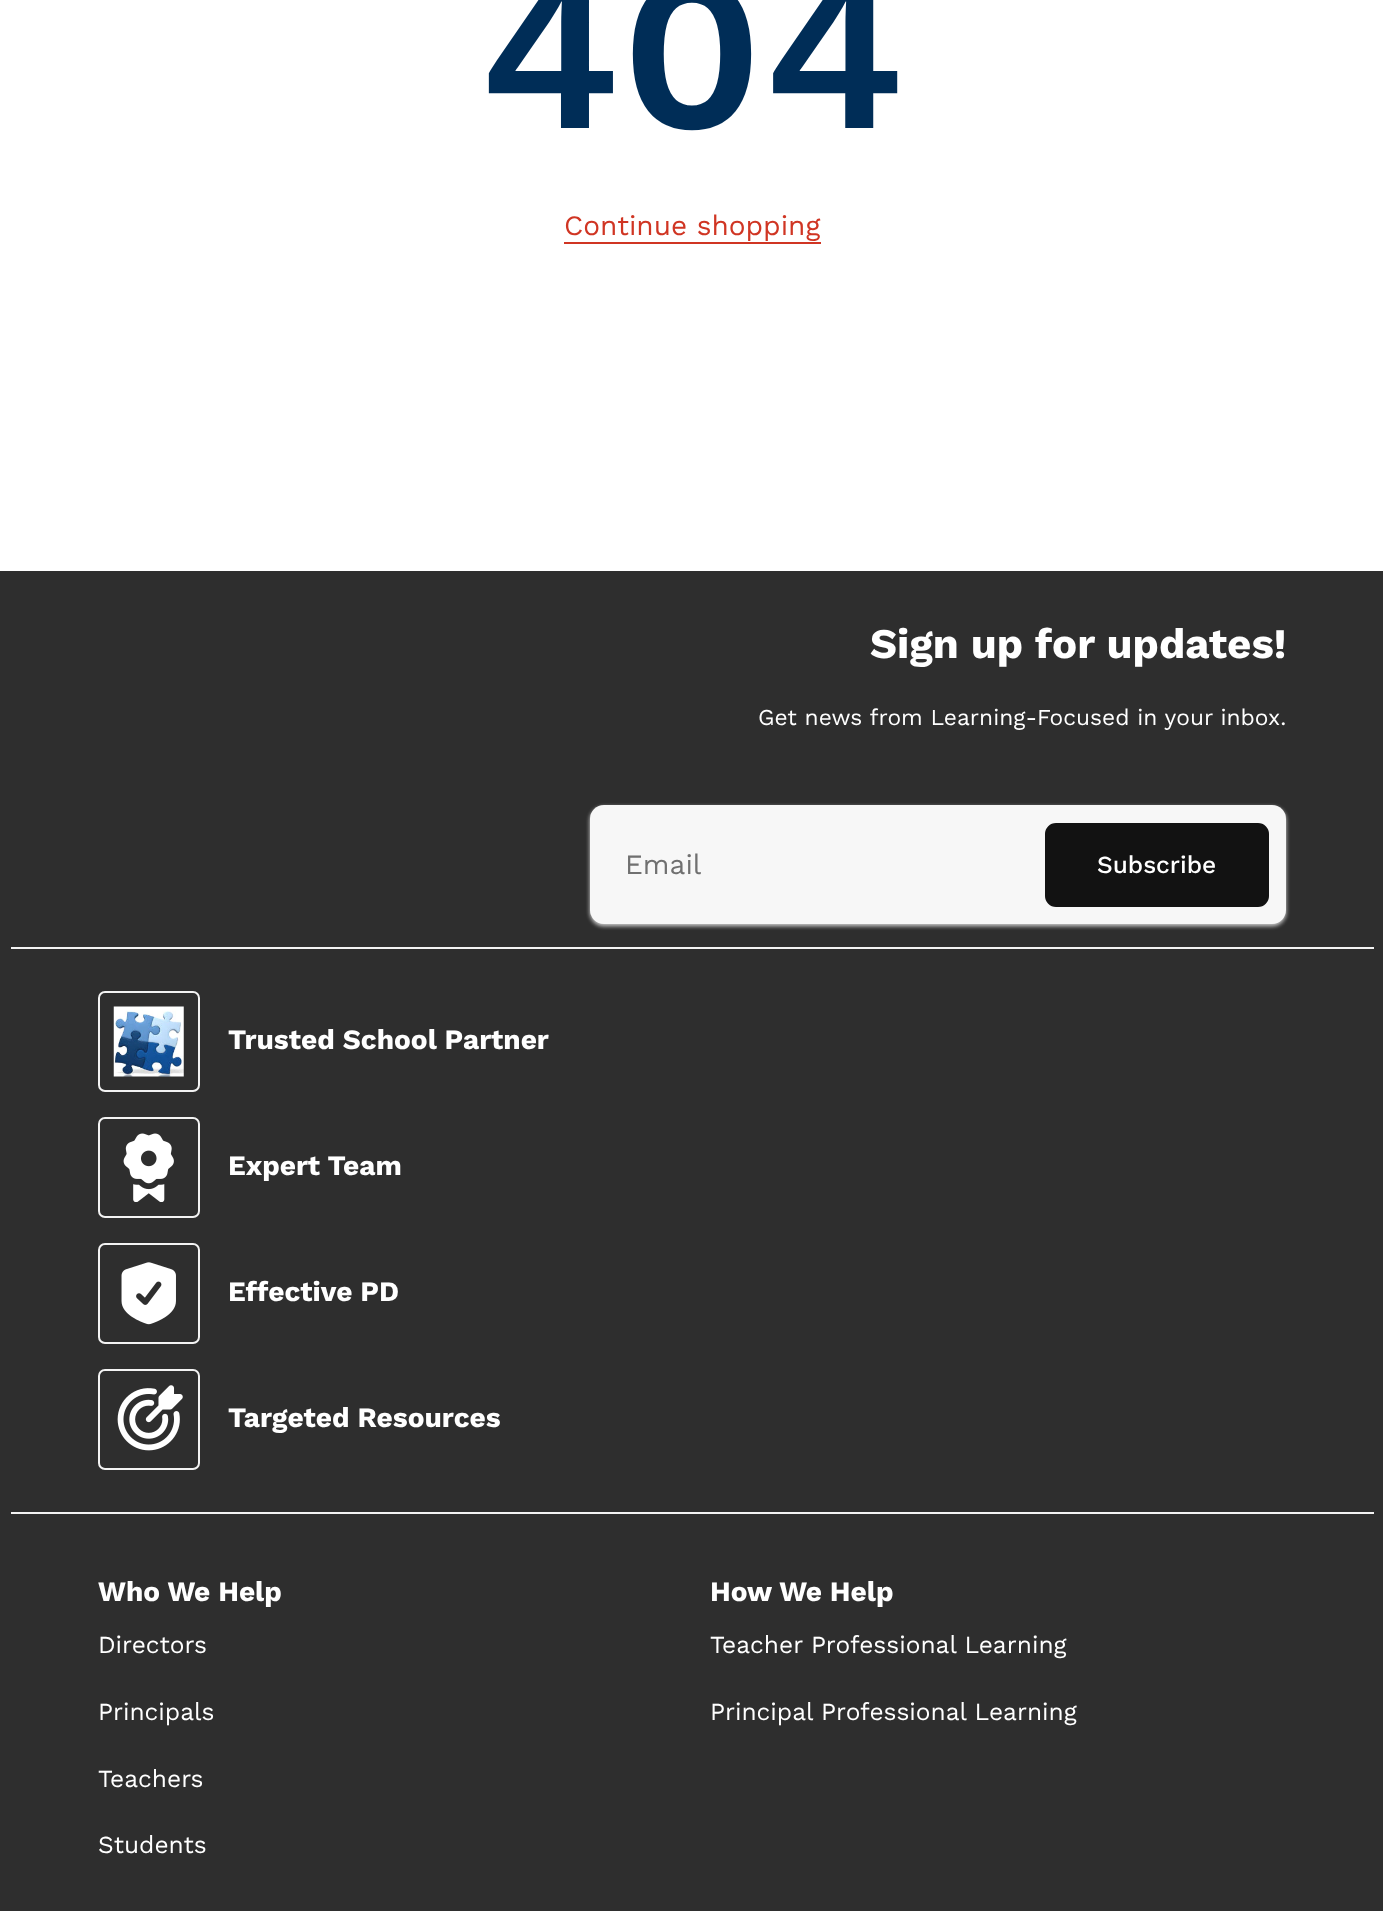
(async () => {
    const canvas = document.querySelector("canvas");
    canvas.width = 1383;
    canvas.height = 1911;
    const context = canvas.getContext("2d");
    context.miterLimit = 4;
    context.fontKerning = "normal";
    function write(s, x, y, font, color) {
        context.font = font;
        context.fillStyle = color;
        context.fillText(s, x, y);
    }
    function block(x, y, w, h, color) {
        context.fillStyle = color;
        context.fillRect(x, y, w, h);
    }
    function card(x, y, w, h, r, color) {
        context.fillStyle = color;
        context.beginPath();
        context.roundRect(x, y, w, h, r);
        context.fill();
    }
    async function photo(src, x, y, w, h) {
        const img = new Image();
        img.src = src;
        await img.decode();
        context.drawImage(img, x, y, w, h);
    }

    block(0, 0, 1383, 1911, "rgb(255, 255, 255)");
    write("404", 479, 128, "600 224px Work Sans", "rgb(0, 45, 87)");
    write("Continue shopping", 564, 235, "28px Work Sans", "rgb(208, 53, 35)");
    block(564, 242, 257, 2, "rgb(208, 53, 35)");
    block(0, 571, 1383, 1340, "rgb(46, 46, 46)");
    write("Sign up for updates!", 870, 658, "bold 42px Work Sans", "rgb(255, 255, 255)");
    write("Get news from Learning-Focused in your inbox.", 758, 725, "22.75px Work Sans", "rgb(255, 255, 255)");
    context.fillStyle = "rgba(245, 245, 245, 0.1)";
    context.filter = "blur(2.5px)";
    context.beginPath();
    context.roundRect(590, 807, 696, 119, 14);
    context.fill();
    context.filter = "none";
    context.fillStyle = "rgba(245, 245, 245, 0.8)";
    context.filter = "blur(2px)";
    context.beginPath();
    context.roundRect(590, 807, 696, 119, 14);
    context.fill();
    context.filter = "none";
    card(590, 805, 696, 119, 14, "rgb(247, 247, 247)");
    write("Email", 625, 874, "28px Work Sans", "rgb(112, 112, 112)");
    context.fillStyle = "rgb(18, 18, 18)";
    context.beginPath();
    context.roundRect(1046, 824, 222, 82, 10);
    context.fill();
    context.strokeStyle = "rgb(18, 18, 18)";
    context.lineWidth = 2;
    context.stroke();
    write("Subscribe", 1097, 873, "500 24.5px Work Sans", "rgb(255, 255, 255)");
    block(11, 947, 1363, 2, "rgb(243, 243, 243)");
    context.beginPath();
    context.roundRect(99, 992, 100, 99, 6);
    context.strokeStyle = "rgb(243, 243, 243)";
    context.stroke();
    await photo("media/1.png", 113, 1006, 71, 71);
    write("Trusted School Partner", 228, 1049, "bold 28px Work Sans", "rgb(255, 255, 255)");
    context.beginPath();
    context.roundRect(99, 1118, 100, 99, 6);
    context.stroke();
    await photo("media/2.png", 123, 1133, 51, 69);
    write("Expert Team", 228, 1175, "bold 28px Work Sans", "rgb(255, 255, 255)");
    context.beginPath();
    context.roundRect(99, 1244, 100, 99, 6);
    context.stroke();
    await photo("media/3.png", 121, 1262, 55, 63);
    write("Effective PD", 228, 1301, "bold 28px Work Sans", "rgb(255, 255, 255)");
    context.beginPath();
    context.roundRect(99, 1370, 100, 99, 6);
    context.stroke();
    await photo("media/4.png", 117, 1385, 66, 66);
    write("Targeted Resources", 228, 1427, "bold 28px Work Sans", "rgb(255, 255, 255)");
    block(11, 1512, 1363, 2, "rgb(243, 243, 243)");
    write("Who We Help", 98, 1601, "bold 28px Work Sans", "rgb(255, 255, 255)");
    write("Directors", 98, 1653, "24.5px Work Sans", "rgb(255, 255, 255)");
    write("Principals", 98, 1720, "24.5px Work Sans", "rgb(255, 255, 255)");
    write("Teachers", 98, 1787, "24.5px Work Sans", "rgb(255, 255, 255)");
    write("Students", 98, 1853, "24.5px Work Sans", "rgb(255, 255, 255)");
    write("How We Help", 710, 1601, "bold 28px Work Sans", "rgb(255, 255, 255)");
    write("Teacher Professional Learning", 710, 1653, "24.5px Work Sans", "rgb(255, 255, 255)");
    write("Principal Professional Learning", 710, 1720, "24.5px Work Sans", "rgb(255, 255, 255)");
})();
